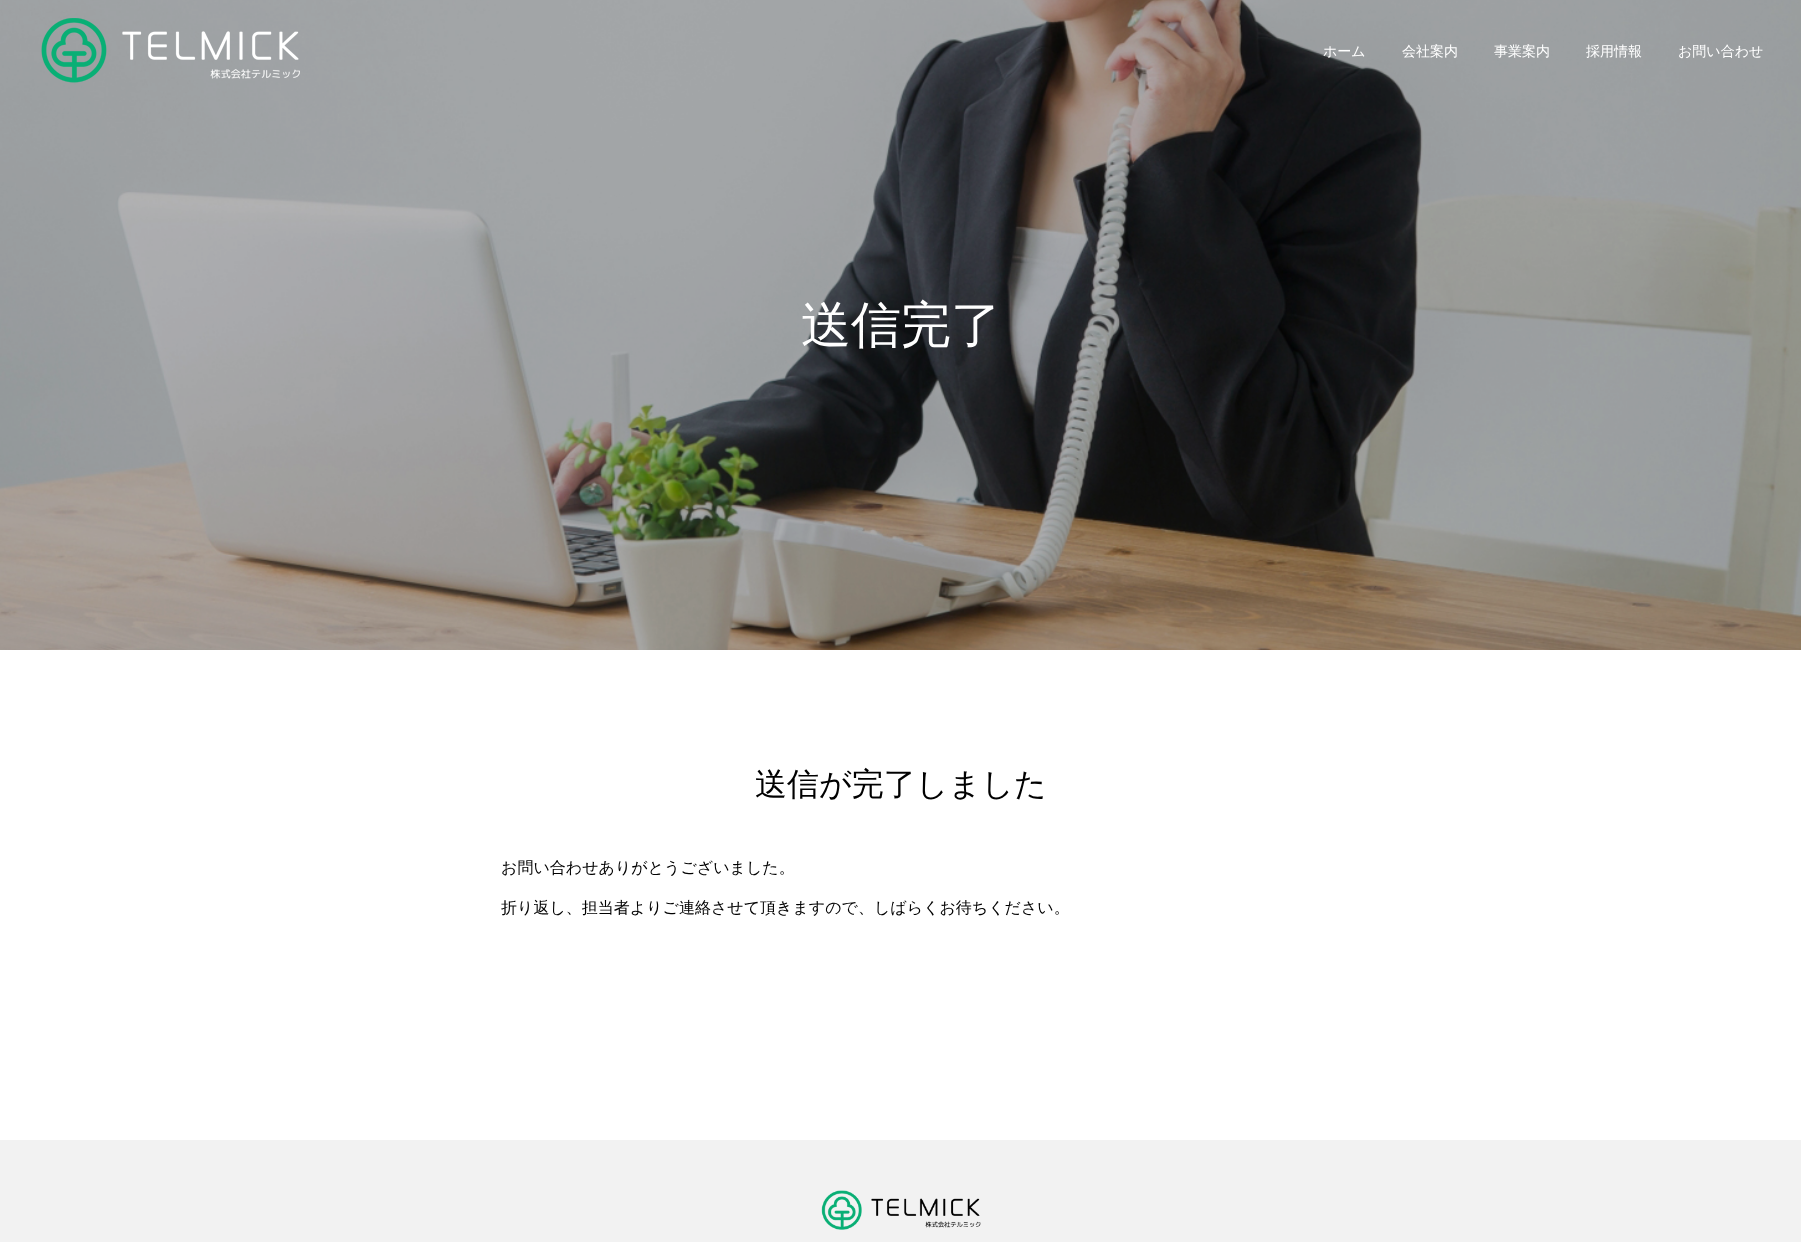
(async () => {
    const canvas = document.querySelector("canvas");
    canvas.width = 1801;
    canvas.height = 1242;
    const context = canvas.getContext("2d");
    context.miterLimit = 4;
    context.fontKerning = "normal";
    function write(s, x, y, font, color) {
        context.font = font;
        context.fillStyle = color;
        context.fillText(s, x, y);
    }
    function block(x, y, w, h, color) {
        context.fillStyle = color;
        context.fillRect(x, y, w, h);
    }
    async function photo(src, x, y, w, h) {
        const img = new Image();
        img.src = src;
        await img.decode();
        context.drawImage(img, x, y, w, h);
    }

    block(0, 0, 1801, 1242, "rgb(255, 255, 255)");
    await photo("media/2.png", 0, 0, 1801, 650);
    await photo("media/1.png", 41, 18, 259, 65);
    write("ホーム", 1323, 56, "500 14px WenQuanYi Zen Hei", "rgb(255, 255, 255)");
    write("会社案内", 1402, 56, "500 14px WenQuanYi Zen Hei", "rgb(255, 255, 255)");
    write("事業案内", 1494, 56, "500 14px WenQuanYi Zen Hei", "rgb(255, 255, 255)");
    write("採用情報", 1586, 56, "500 14px WenQuanYi Zen Hei", "rgb(255, 255, 255)");
    write("お問い合わせ", 1678, 56, "500 14px WenQuanYi Zen Hei", "rgb(255, 255, 255)");
    write("送信完了", 801, 342, "500 50px WenQuanYi Zen Hei", "rgb(255, 255, 255)");
    write("送信が完了しました", 755, 795, "500 32px WenQuanYi Zen Hei", "rgb(0, 0, 0)");
    write("お問い合わせありがとうございました。", 501, 873, "500 16px WenQuanYi Zen Hei", "rgb(0, 0, 0)");
    write("折り返し、担当者よりご連絡させて頂きますので、しばらくお待ちください。", 501, 913, "500 16px WenQuanYi Zen Hei", "rgb(0, 0, 0)");
    block(0, 1140, 1801, 102, "rgb(242, 242, 242)");
    await photo("media/3.png", 821, 1190, 160, 40);
})();
